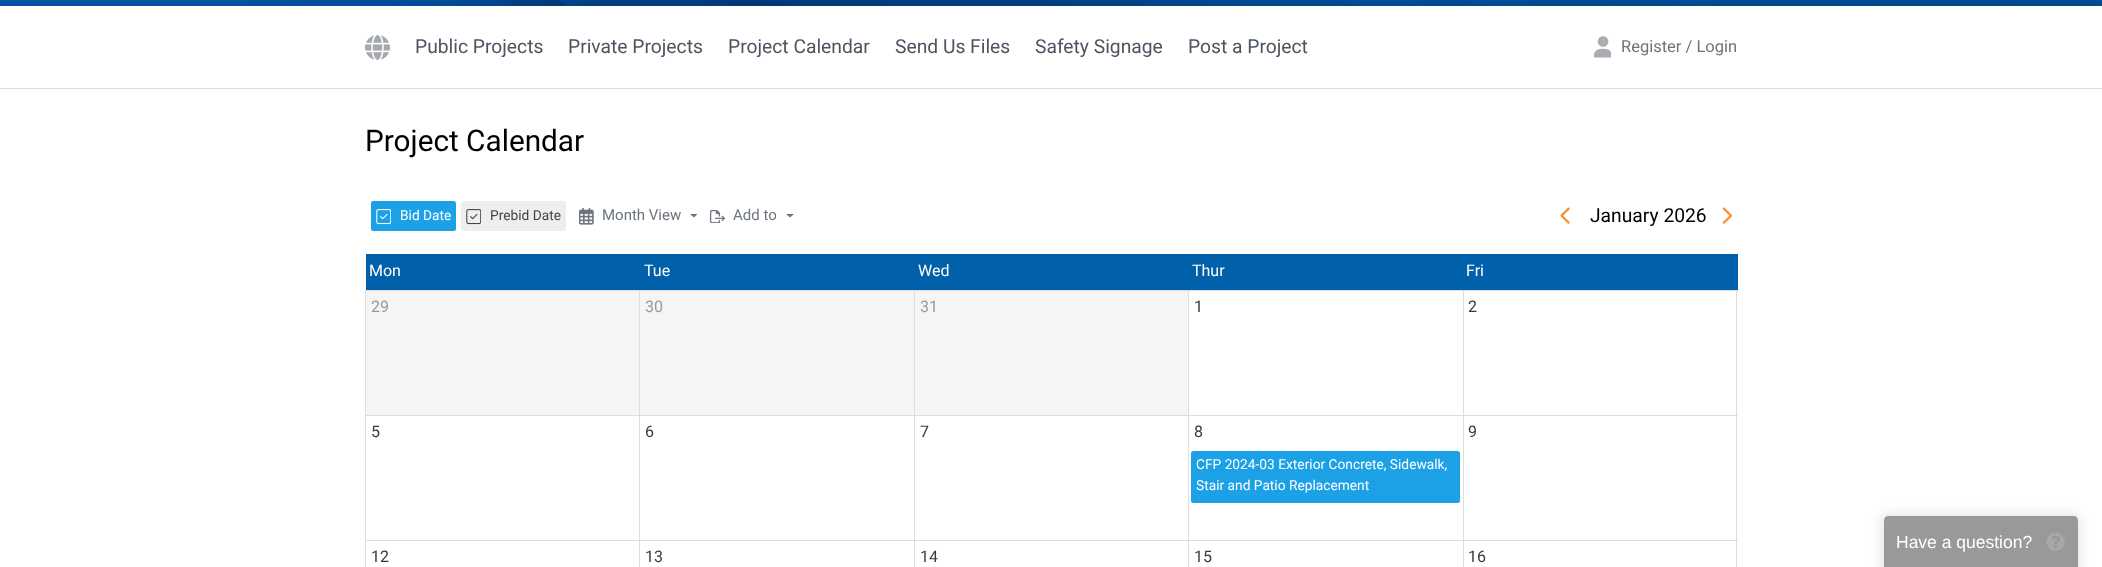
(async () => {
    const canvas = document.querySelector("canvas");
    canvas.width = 2102;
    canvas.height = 567;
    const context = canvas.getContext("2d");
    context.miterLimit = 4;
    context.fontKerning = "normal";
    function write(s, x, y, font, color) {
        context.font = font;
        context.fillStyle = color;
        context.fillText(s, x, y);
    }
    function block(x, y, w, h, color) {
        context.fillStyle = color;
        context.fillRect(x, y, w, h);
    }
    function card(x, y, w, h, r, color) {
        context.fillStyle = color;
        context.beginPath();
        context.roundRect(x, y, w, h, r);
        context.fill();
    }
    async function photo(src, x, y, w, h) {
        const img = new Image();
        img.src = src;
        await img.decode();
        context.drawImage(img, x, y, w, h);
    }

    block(0, 0, 2102, 567, "rgb(255, 255, 255)");
    await photo("media/1.png", 0, 0, 2102, 6);
    block(0, 88, 2102, 1, "rgb(222, 222, 222)");
    await photo("media/2.png", 365, 35, 25, 25);
    write("Public Projects", 415, 53, "19.25px Roboto", "rgb(76, 84, 95)");
    write("Private Projects", 568, 53, "19.25px Roboto", "rgb(76, 84, 95)");
    write("Project Calendar", 728, 53, "19.25px Roboto", "rgb(76, 84, 95)");
    write("Send Us Files", 895, 53, "19.25px Roboto", "rgb(76, 84, 95)");
    write("Safety Signage", 1035, 53, "19.25px Roboto", "rgb(76, 84, 95)");
    write("Post a Project", 1188, 53, "19.25px Roboto", "rgb(76, 84, 95)");
    await photo("media/3.png", 1594, 36, 17, 22);
    write("Register / Login", 1621, 52, "16.5px Roboto", "rgb(108, 117, 125)");
    write("Project Calendar", 365, 151, "29.75px Roboto", "rgb(0, 0, 0)");
    card(371, 201, 85, 30, 2.5, "rgb(29, 161, 230)");
    await photo("media/4.png", 376, 209, 15, 16);
    write("Bid Date", 400, 220, "13.75px Roboto", "rgb(255, 255, 255)");
    card(461, 201, 105, 30, 2.5, "rgb(238, 238, 238)");
    await photo("media/5.png", 466, 209, 15, 16);
    write("Prebid Date", 490, 220, "13.75px Roboto", "rgb(68, 68, 68)");
    await photo("media/6.png", 579, 208, 15, 17);
    write("Month View", 602, 220, "15px Roboto", "rgb(108, 117, 125)");
    context.beginPath();
    context.moveTo(690, 214);
    context.lineTo(697.5, 214);
    context.lineTo(694, 217.5);
    context.closePath();
    context.fill();
    await photo("media/7.png", 710, 210, 15, 13);
    write("Add to", 733, 220, "15px Roboto", "rgb(108, 117, 125)");
    context.beginPath();
    context.moveTo(786, 214);
    context.lineTo(794, 214);
    context.lineTo(790, 217.5);
    context.closePath();
    context.fill();
    await photo("media/8.png", 1560, 207, 10, 17);
    write("January 2026", 1590, 222, "19.25px Roboto", "rgb(0, 0, 0)");
    await photo("media/9.png", 1722, 207, 11, 17);
    block(366, 254, 1372, 36, "rgb(0, 96, 169)");
    write("Mon", 369, 276, "16px Roboto", "rgb(255, 255, 255)");
    write("Tue", 644, 276, "16px Roboto", "rgb(255, 255, 255)");
    write("Wed", 918, 276, "16px Roboto", "rgb(255, 255, 255)");
    write("Thur", 1192, 276, "16px Roboto", "rgb(255, 255, 255)");
    write("Fri", 1466, 276, "16px Roboto", "rgb(255, 255, 255)");
    block(366, 291, 273, 124, "rgb(245, 245, 245)");
    block(1463, 290, 275, 1, "rgb(221, 221, 221)");
    block(1463, 415, 275, 1, "rgb(221, 221, 221)");
    block(1463, 540, 275, 1, "rgb(221, 221, 221)");
    block(1463, 540, 1, 27, "rgb(221, 221, 221)");
    block(1188, 540, 276, 1, "rgb(221, 221, 221)");
    block(1463, 415, 1, 126, "rgb(221, 221, 221)");
    block(1188, 415, 276, 1, "rgb(221, 221, 221)");
    block(1463, 290, 1, 126, "rgb(221, 221, 221)");
    block(1188, 290, 276, 1, "rgb(221, 221, 221)");
    block(1188, 540, 1, 27, "rgb(221, 221, 221)");
    block(914, 540, 275, 1, "rgb(221, 221, 221)");
    block(1188, 415, 1, 126, "rgb(221, 221, 221)");
    block(914, 415, 275, 1, "rgb(221, 221, 221)");
    block(1188, 290, 1, 126, "rgb(221, 221, 221)");
    block(914, 290, 275, 1, "rgb(221, 221, 221)");
    block(914, 540, 1, 27, "rgb(221, 221, 221)");
    block(639, 540, 276, 1, "rgb(221, 221, 221)");
    block(914, 415, 1, 126, "rgb(221, 221, 221)");
    block(639, 415, 276, 1, "rgb(221, 221, 221)");
    block(914, 290, 1, 126, "rgb(221, 221, 221)");
    block(639, 290, 276, 1, "rgb(221, 221, 221)");
    block(639, 540, 1, 27, "rgb(221, 221, 221)");
    block(365, 540, 275, 1, "rgb(221, 221, 221)");
    block(639, 415, 1, 126, "rgb(221, 221, 221)");
    block(365, 415, 275, 1, "rgb(221, 221, 221)");
    block(639, 290, 1, 126, "rgb(221, 221, 221)");
    block(365, 290, 275, 1, "rgb(221, 221, 221)");
    block(365, 540, 1, 27, "rgb(221, 221, 221)");
    block(365, 415, 1, 126, "rgb(221, 221, 221)");
    block(365, 290, 1, 126, "rgb(221, 221, 221)");
    write("29", 371, 312, "16px Roboto", "rgb(150, 152, 153)");
    block(640, 291, 274, 124, "rgb(245, 245, 245)");
    write("30", 645, 312, "16px Roboto", "rgb(150, 152, 153)");
    block(915, 291, 273, 124, "rgb(245, 245, 245)");
    write("31", 920, 312, "16px Roboto", "rgb(150, 152, 153)");
    write("1", 1194, 312, "16px Roboto", "rgb(55, 58, 60)");
    block(1736, 540, 1, 27, "rgb(221, 221, 221)");
    block(1736, 415, 1, 126, "rgb(221, 221, 221)");
    block(1736, 290, 1, 126, "rgb(221, 221, 221)");
    write("2", 1468, 312, "16px Roboto", "rgb(55, 58, 60)");
    write("5", 371, 437, "16px Roboto", "rgb(55, 58, 60)");
    write("6", 645, 437, "16px Roboto", "rgb(55, 58, 60)");
    write("7", 920, 437, "16px Roboto", "rgb(55, 58, 60)");
    write("8", 1194, 437, "16px Roboto", "rgb(55, 58, 60)");
    card(1191, 451, 269, 52, 2.5, "rgb(29, 161, 230)");
    write("CFP 2024-03 Exterior Concrete, Sidewalk,", 1196, 469, "13.75px Roboto", "rgb(255, 255, 255)");
    write("Stair and Patio Replacement", 1196, 490, "13.75px Roboto", "rgb(255, 255, 255)");
    write("9", 1468, 437, "16px Roboto", "rgb(55, 58, 60)");
    write("12", 371, 562, "16px Roboto", "rgb(55, 58, 60)");
    write("13", 645, 562, "16px Roboto", "rgb(55, 58, 60)");
    write("14", 920, 562, "16px Roboto", "rgb(55, 58, 60)");
    write("15", 1194, 562, "16px Roboto", "rgb(55, 58, 60)");
    write("16", 1468, 562, "16px Roboto", "rgb(55, 58, 60)");
    context.save();
    context.beginPath();
    context.moveTo(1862, 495);
    context.lineTo(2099, 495);
    context.lineTo(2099, 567);
    context.lineTo(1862, 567);
    context.closePath();
    context.moveTo(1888, 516);
    context.lineTo(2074, 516);
    context.bezierCurveTo(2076, 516, 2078, 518, 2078, 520);
    context.lineTo(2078, 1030);
    context.lineTo(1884, 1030);
    context.lineTo(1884, 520);
    context.bezierCurveTo(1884, 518, 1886, 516, 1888, 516);
    context.closePath();
    context.clip("evenodd");
    context.fillStyle = "rgba(0, 0, 0, 0.1)";
    context.filter = "blur(6px)";
    context.beginPath();
    context.roundRect(1881, 514, 199, 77, 6);
    context.fill();
    context.filter = "none";
    context.restore();
    context.fillStyle = "rgba(51, 51, 51, 0.5)";
    context.beginPath();
    context.moveTo(1888, 516);
    context.lineTo(2074, 516);
    context.bezierCurveTo(2076, 516, 2078, 518, 2078, 520);
    context.lineTo(2078, 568);
    context.lineTo(1884, 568);
    context.lineTo(1884, 520);
    context.bezierCurveTo(1884, 518, 1886, 516, 1888, 516);
    context.closePath();
    context.fill();
    write("Have a question?", 1896, 548, "17.5px Liberation Sans", "rgb(255, 255, 255)");
    await photo("media/10.png", 2046, 533, 19, 18);
})();
